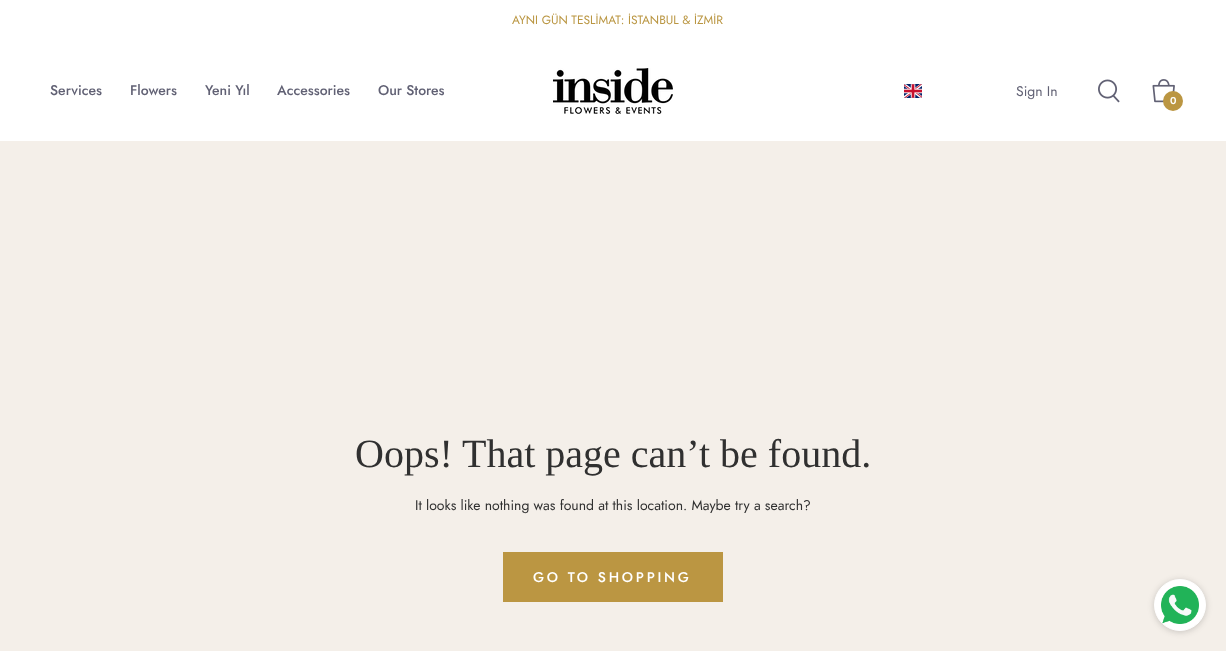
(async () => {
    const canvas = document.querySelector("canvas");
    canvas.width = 1226;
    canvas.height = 651;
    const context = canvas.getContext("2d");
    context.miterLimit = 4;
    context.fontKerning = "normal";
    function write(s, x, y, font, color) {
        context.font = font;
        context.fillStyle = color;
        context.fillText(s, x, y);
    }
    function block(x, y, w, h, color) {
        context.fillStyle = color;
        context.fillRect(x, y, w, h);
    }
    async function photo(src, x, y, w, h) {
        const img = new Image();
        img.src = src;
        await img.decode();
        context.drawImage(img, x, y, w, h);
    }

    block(0, 0, 1226, 651, "rgb(255, 255, 255)");
    write("AYNI GÜN TESLİMAT: İSTANBUL & İZMİR", 512, 24, "12px Jost", "rgb(186, 150, 66)");
    write("Services", 50, 95, "500 14px Jost", "rgb(97, 97, 116)");
    write("Flowers", 130, 95, "500 14px Jost", "rgb(97, 97, 116)");
    write("Yeni Yıl", 205, 95, "500 14px Jost", "rgb(97, 97, 116)");
    write("Accessories", 277, 95, "500 14px Jost", "rgb(97, 97, 116)");
    write("Our Stores", 378, 95, "500 14px Jost", "rgb(97, 97, 116)");
    await photo("media/1.png", 553, 68, 120, 46);
    await photo("media/2.png", 904, 84, 18, 14);
    write("Sign In", 1016, 96, "14px Jost", "rgb(97, 97, 116)");
    await photo("media/3.png", 1098, 79, 22, 24);
    await photo("media/4.png", 1152, 79, 23, 24);
    context.fillStyle = "rgb(187, 150, 66)";
    context.beginPath();
    context.arc(1173, 101, 10, 0, Math.PI * 2);
    context.fill();
    write("0", 1170, 104, "600 10px Jost", "rgb(255, 255, 255)");
    block(0, 141, 1226, 510, "rgb(244, 239, 233)");
    write("Oops! That page can’t be found.", 355, 467, "40px Liberation Serif", "rgb(48, 48, 48)");
    write("It looks like nothing was found at this location. Maybe try a search?", 415, 510, "14px Jost", "rgb(48, 48, 48)");
    block(503, 552, 220, 50, "rgb(187, 150, 66)");
    context.letterSpacing = "2.75px";
    write("GO TO SHOPPING", 533, 582, "500 14px Jost", "rgb(255, 255, 255)");
    context.fillStyle = "rgba(27, 27, 27, 0.2)";
    context.filter = "blur(3px)";
    context.beginPath();
    context.roundRect(1154, 580, 52, 52, 26);
    context.fill();
    context.filter = "none";
    context.fillStyle = "rgb(255, 255, 255)";
    context.beginPath();
    context.arc(1180, 605, 25.5, 0, Math.PI * 2);
    context.fill();
    context.strokeStyle = "rgb(255, 255, 255)";
    context.stroke();
    await photo("media/5.png", 1161, 586, 38, 38);
})();
